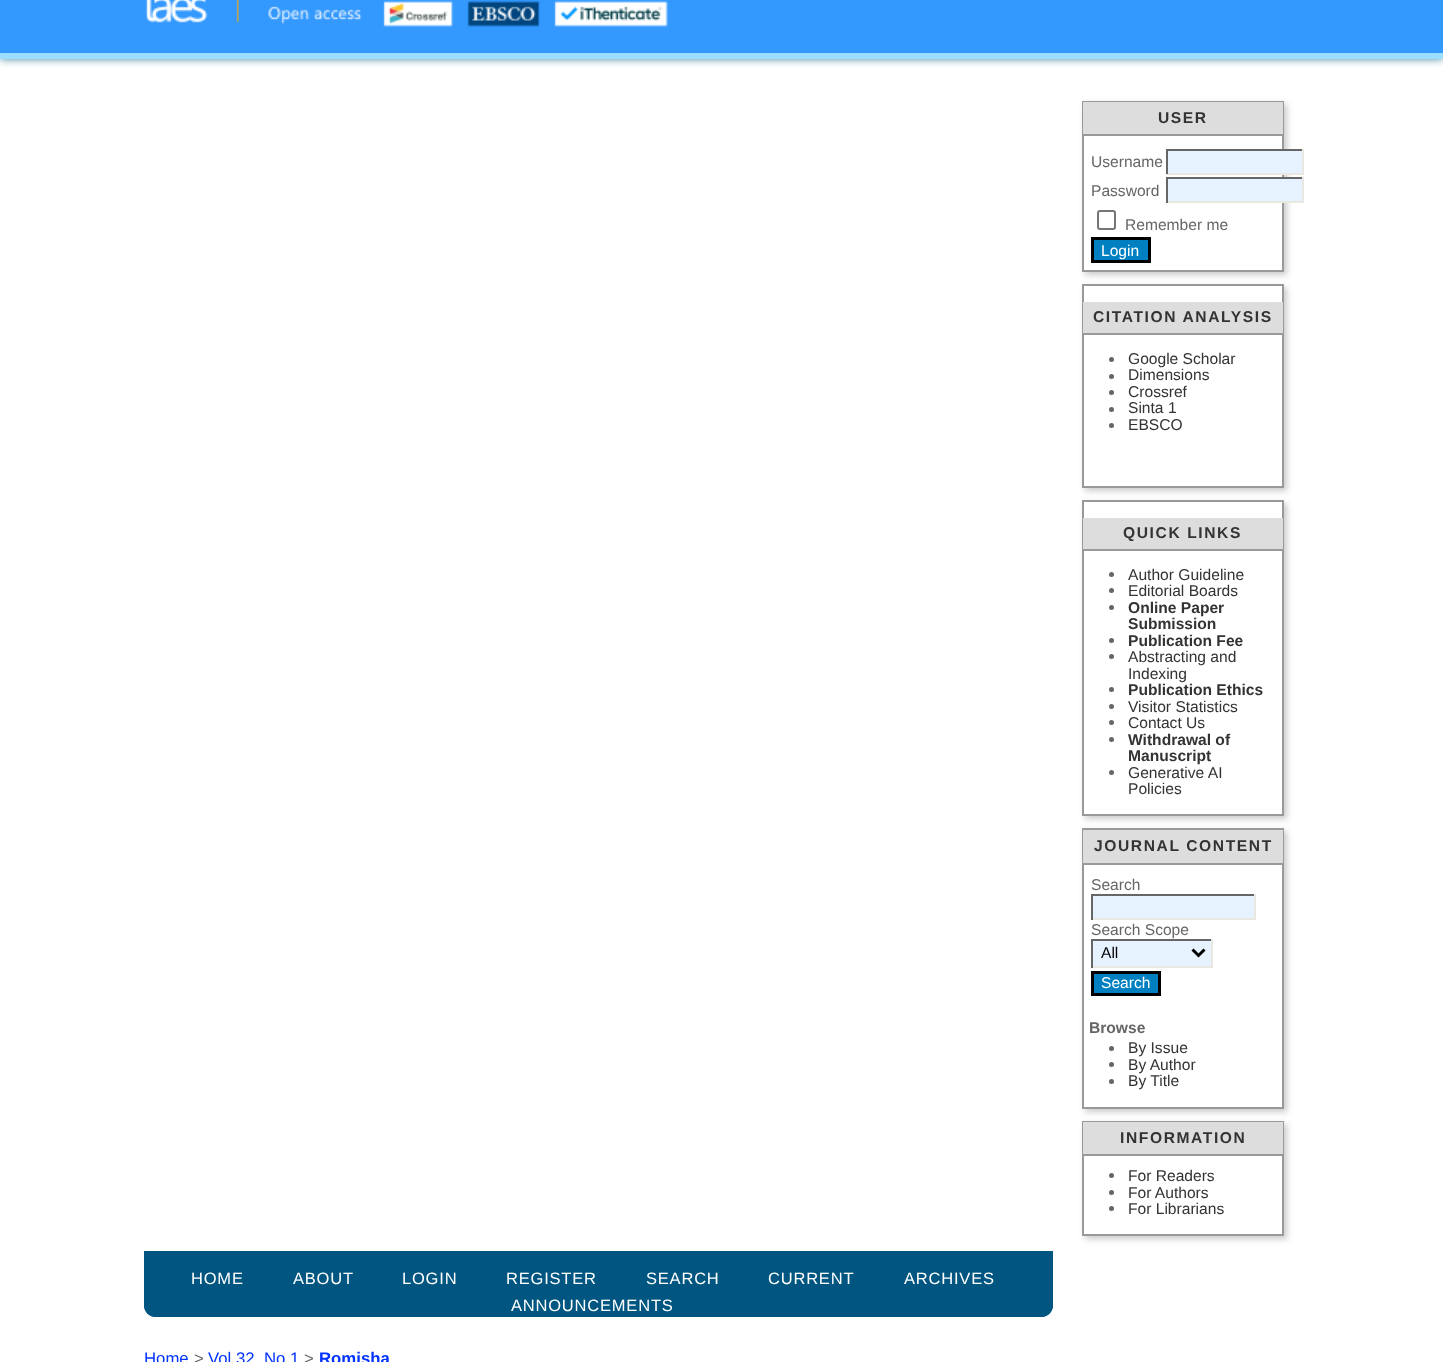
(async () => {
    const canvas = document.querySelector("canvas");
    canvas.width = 1443;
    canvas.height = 1362;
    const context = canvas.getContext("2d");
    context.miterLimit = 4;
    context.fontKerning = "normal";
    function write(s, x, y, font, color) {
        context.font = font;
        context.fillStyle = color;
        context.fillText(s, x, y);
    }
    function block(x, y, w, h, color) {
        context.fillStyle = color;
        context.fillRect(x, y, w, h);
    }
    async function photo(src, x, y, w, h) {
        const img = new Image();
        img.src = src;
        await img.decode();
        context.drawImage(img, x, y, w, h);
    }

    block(0, 0, 1443, 1362, "rgb(255, 255, 255)");
    context.fillStyle = "rgb(63, 136, 160)";
    context.filter = "blur(4.5px)";
    context.beginPath();
    context.rect(0, -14, 1443, 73);
    context.fill();
    context.filter = "none";
    block(0, 0, 1443, 53, "rgb(51, 153, 255)");
    block(0, 53, 1443, 6, "rgb(155, 222, 255)");
    await photo("media/1.png", 145, 0, 523, 27);
    context.fillStyle = "rgb(202, 202, 202)";
    context.filter = "blur(3px)";
    context.beginPath();
    context.rect(1085, 104, 202, 171);
    context.fill();
    context.filter = "none";
    block(1084, 136, 198, 134, "rgb(255, 255, 255)");
    context.strokeStyle = "rgb(153, 153, 153)";
    context.lineWidth = 2;
    context.strokeRect(1083, 102, 200, 169);
    block(1083, 102, 200, 32, "rgb(221, 221, 221)");
    block(1083, 134, 200, 2, "rgb(153, 153, 153)");
    context.letterSpacing = "1.6px";
    write("USER", 1158, 123, "bold 15.6px Liberation Sans", "rgb(51, 51, 51)");
    context.letterSpacing = "0px";
    write("Username", 1091, 167, "15.6px Liberation Sans", "rgb(102, 102, 102)");
    block(1168, 151, 134, 22, "rgb(230, 242, 255)");
    block(1166, 149, 138, 2, "rgb(102, 102, 102)");
    block(1302, 149, 2, 25, "rgb(232, 232, 225)");
    block(1166, 173, 138, 2, "rgb(232, 232, 225)");
    block(1166, 149, 2, 25, "rgb(102, 102, 102)");
    write("Password", 1091, 196, "15.6px Liberation Sans", "rgb(102, 102, 102)");
    block(1168, 179, 134, 22, "rgb(230, 242, 255)");
    block(1166, 177, 138, 2, "rgb(102, 102, 102)");
    block(1302, 177, 2, 26, "rgb(232, 232, 225)");
    block(1166, 201, 138, 2, "rgb(232, 232, 225)");
    block(1166, 177, 2, 26, "rgb(102, 102, 102)");
    context.beginPath();
    context.roundRect(1098, 211, 17, 18, 2);
    context.strokeStyle = "rgb(118, 118, 118)";
    context.stroke();
    write("Remember me", 1125, 230, "15.6px Liberation Sans", "rgb(102, 102, 102)");
    context.fillStyle = "rgb(0, 128, 192)";
    context.beginPath();
    context.rect(1092.5, 238.5, 57, 23);
    context.fill();
    context.strokeStyle = "rgb(0, 0, 0)";
    context.lineWidth = 3;
    context.stroke();
    write("Login", 1101, 256, "15.6px Liberation Sans", "rgb(255, 255, 255)");
    context.fillStyle = "rgb(202, 202, 202)";
    context.filter = "blur(3px)";
    context.beginPath();
    context.rect(1085, 287, 202, 204);
    context.fill();
    context.filter = "none";
    context.fillStyle = "rgb(255, 255, 255)";
    context.beginPath();
    context.rect(1083, 285, 200, 202);
    context.fill();
    context.strokeStyle = "rgb(153, 153, 153)";
    context.lineWidth = 2;
    context.stroke();
    block(1083, 302, 200, 31, "rgb(221, 221, 221)");
    block(1083, 333, 200, 2, "rgb(153, 153, 153)");
    context.letterSpacing = "1.6px";
    write("CITATION ANALYSIS", 1093, 322, "bold 15.6px Liberation Sans", "rgb(51, 51, 51)");
    context.fillStyle = "rgb(102, 102, 102)";
    context.beginPath();
    context.arc(1111.5, 359.5, 2.5, 0, Math.PI * 2);
    context.fill();
    context.letterSpacing = "0px";
    write("Google Scholar", 1128, 364, "15.6px Liberation Sans", "rgb(51, 51, 51)");
    context.fillStyle = "rgb(102, 102, 102)";
    context.beginPath();
    context.arc(1111.5, 376.5, 2.5, 0, Math.PI * 2);
    context.fill();
    write("Dimensions", 1128, 380, "15.6px Liberation Sans", "rgb(51, 51, 51)");
    context.fillStyle = "rgb(102, 102, 102)";
    context.beginPath();
    context.arc(1111.5, 392.5, 2.5, 0, Math.PI * 2);
    context.fill();
    write("Crossref", 1128, 397, "15.6px Liberation Sans", "rgb(51, 51, 51)");
    context.fillStyle = "rgb(102, 102, 102)";
    context.beginPath();
    context.arc(1111.5, 409.5, 2.5, 0, Math.PI * 2);
    context.fill();
    write("Sinta 1", 1128, 413, "15.6px Liberation Sans", "rgb(51, 51, 51)");
    context.fillStyle = "rgb(102, 102, 102)";
    context.beginPath();
    context.arc(1111.5, 425.5, 2.5, 0, Math.PI * 2);
    context.fill();
    write("EBSCO", 1128, 430, "15.6px Liberation Sans", "rgb(51, 51, 51)");
    context.save();
    context.beginPath();
    context.moveTo(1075, 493);
    context.lineTo(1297, 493);
    context.lineTo(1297, 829);
    context.lineTo(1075, 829);
    context.closePath();
    context.moveTo(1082, 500);
    context.lineTo(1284, 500);
    context.lineTo(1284, 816);
    context.lineTo(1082, 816);
    context.closePath();
    context.clip("evenodd");
    context.fillStyle = "rgb(202, 202, 202)";
    context.filter = "blur(3px)";
    context.beginPath();
    context.rect(1085, 503, 202, 316);
    context.fill();
    context.filter = "none";
    context.restore();
    context.strokeRect(1083, 501, 200, 314);
    block(1083, 518, 200, 31, "rgb(221, 221, 221)");
    block(1083, 549, 200, 2, "rgb(153, 153, 153)");
    context.letterSpacing = "1.6px";
    write("QUICK LINKS", 1123, 538, "bold 15.6px Liberation Sans", "rgb(51, 51, 51)");
    context.fillStyle = "rgb(102, 102, 102)";
    context.beginPath();
    context.arc(1111.5, 574.5, 2.5, 0, Math.PI * 2);
    context.fill();
    context.letterSpacing = "0px";
    write("Author Guideline", 1128, 580, "15.6px Liberation Sans", "rgb(51, 51, 51)");
    context.fillStyle = "rgb(102, 102, 102)";
    context.beginPath();
    context.arc(1111.5, 590.5, 2.5, 0, Math.PI * 2);
    context.fill();
    write("Editorial Boards", 1128, 596, "15.6px Liberation Sans", "rgb(51, 51, 51)");
    context.fillStyle = "rgb(102, 102, 102)";
    context.beginPath();
    context.arc(1111.5, 607.5, 2.5, 0, Math.PI * 2);
    context.fill();
    write("Online Paper", 1128, 613, "bold 15.6px Liberation Sans", "rgb(51, 51, 51)");
    write("Submission", 1128, 629, "bold 15.6px Liberation Sans", "rgb(51, 51, 51)");
    context.fillStyle = "rgb(102, 102, 102)";
    context.beginPath();
    context.arc(1111.5, 640.5, 2.5, 0, Math.PI * 2);
    context.fill();
    write("Publication Fee", 1128, 646, "bold 15.6px Liberation Sans", "rgb(51, 51, 51)");
    context.fillStyle = "rgb(102, 102, 102)";
    context.beginPath();
    context.arc(1111.5, 656.5, 2.5, 0, Math.PI * 2);
    context.fill();
    write("Abstracting and", 1128, 662, "15.6px Liberation Sans", "rgb(51, 51, 51)");
    write("Indexing", 1128, 679, "15.6px Liberation Sans", "rgb(51, 51, 51)");
    context.fillStyle = "rgb(102, 102, 102)";
    context.beginPath();
    context.arc(1111.5, 689.5, 2.5, 0, Math.PI * 2);
    context.fill();
    write("Publication Ethics", 1128, 695, "bold 15.6px Liberation Sans", "rgb(51, 51, 51)");
    context.fillStyle = "rgb(102, 102, 102)";
    context.beginPath();
    context.arc(1111.5, 706.5, 2.5, 0, Math.PI * 2);
    context.fill();
    write("Visitor Statistics", 1128, 712, "15.6px Liberation Sans", "rgb(51, 51, 51)");
    context.fillStyle = "rgb(102, 102, 102)";
    context.beginPath();
    context.arc(1111.5, 722.5, 2.5, 0, Math.PI * 2);
    context.fill();
    write("Contact Us", 1128, 728, "15.6px Liberation Sans", "rgb(51, 51, 51)");
    context.fillStyle = "rgb(102, 102, 102)";
    context.beginPath();
    context.arc(1111.5, 739.5, 2.5, 0, Math.PI * 2);
    context.fill();
    write("Withdrawal of", 1128, 745, "bold 15.6px Liberation Sans", "rgb(51, 51, 51)");
    write("Manuscript", 1128, 761, "bold 15.6px Liberation Sans", "rgb(51, 51, 51)");
    context.fillStyle = "rgb(102, 102, 102)";
    context.beginPath();
    context.arc(1111.5, 772.5, 2.5, 0, Math.PI * 2);
    context.fill();
    write("Generative AI", 1128, 778, "15.6px Liberation Sans", "rgb(51, 51, 51)");
    write("Policies", 1128, 794, "15.6px Liberation Sans", "rgb(51, 51, 51)");
    context.fillStyle = "rgb(202, 202, 202)";
    context.filter = "blur(3px)";
    context.beginPath();
    context.rect(1085, 831, 202, 281);
    context.fill();
    context.filter = "none";
    block(1084, 865, 198, 242, "rgb(255, 255, 255)");
    context.strokeRect(1083, 829, 200, 279);
    block(1083, 830, 200, 33, "rgb(221, 221, 221)");
    block(1083, 863, 200, 2, "rgb(153, 153, 153)");
    context.letterSpacing = "1.6px";
    write("JOURNAL CONTENT", 1094, 851, "bold 15.6px Liberation Sans", "rgb(51, 51, 51)");
    context.letterSpacing = "0px";
    write("Search", 1091, 890, "15.6px Liberation Sans", "rgb(102, 102, 102)");
    block(1093, 896, 161, 22, "rgb(230, 242, 255)");
    block(1091, 894, 165, 2, "rgb(102, 102, 102)");
    block(1254, 894, 2, 26, "rgb(232, 232, 225)");
    block(1091, 918, 165, 2, "rgb(232, 232, 225)");
    block(1091, 894, 2, 26, "rgb(102, 102, 102)");
    write("Search Scope", 1091, 935, "15.6px Liberation Sans", "rgb(102, 102, 102)");
    block(1093, 941, 118, 25, "rgb(230, 242, 255)");
    block(1091, 939, 121, 2, "rgb(102, 102, 102)");
    block(1211, 939, 2, 29, "rgb(232, 232, 225)");
    block(1091, 966, 121, 2, "rgb(232, 232, 225)");
    block(1091, 939, 2, 29, "rgb(102, 102, 102)");
    context.beginPath();
    context.moveTo(1192.5, 949.5);
    context.lineTo(1198.5, 955.5);
    context.lineTo(1204.5, 949.5);
    context.strokeStyle = "rgb(0, 0, 0)";
    context.lineWidth = 3;
    context.stroke();
    write("All", 1101, 958, "15.6px Liberation Sans", "rgb(0, 0, 0)");
    context.fillStyle = "rgb(0, 128, 192)";
    context.beginPath();
    context.rect(1092.5, 972.5, 67, 22);
    context.fill();
    context.stroke();
    write("Search", 1101, 988, "15.6px Liberation Sans", "rgb(255, 255, 255)");
    write("Browse", 1089, 1033, "bold 15.6px Liberation Sans", "rgb(102, 102, 102)");
    context.beginPath();
    context.arc(1111.5, 1048.5, 2.5, 0, Math.PI * 2);
    context.fill();
    write("By Issue", 1128, 1053, "15.6px Liberation Sans", "rgb(51, 51, 51)");
    context.fillStyle = "rgb(102, 102, 102)";
    context.beginPath();
    context.arc(1111.5, 1064.5, 2.5, 0, Math.PI * 2);
    context.fill();
    write("By Author", 1128, 1070, "15.6px Liberation Sans", "rgb(51, 51, 51)");
    context.fillStyle = "rgb(102, 102, 102)";
    context.beginPath();
    context.arc(1111.5, 1081.5, 2.5, 0, Math.PI * 2);
    context.fill();
    write("By Title", 1128, 1086, "15.6px Liberation Sans", "rgb(51, 51, 51)");
    context.save();
    context.beginPath();
    context.moveTo(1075, 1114);
    context.lineTo(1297, 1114);
    context.lineTo(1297, 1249);
    context.lineTo(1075, 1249);
    context.closePath();
    context.moveTo(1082, 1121);
    context.lineTo(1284, 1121);
    context.lineTo(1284, 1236);
    context.lineTo(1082, 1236);
    context.closePath();
    context.clip("evenodd");
    context.fillStyle = "rgb(202, 202, 202)";
    context.filter = "blur(3px)";
    context.beginPath();
    context.rect(1085, 1124, 202, 115);
    context.fill();
    context.filter = "none";
    context.restore();
    context.strokeStyle = "rgb(153, 153, 153)";
    context.lineWidth = 2;
    context.strokeRect(1083, 1122, 200, 113);
    block(1083, 1122, 200, 32, "rgb(221, 221, 221)");
    block(1083, 1154, 200, 2, "rgb(153, 153, 153)");
    context.letterSpacing = "1.6px";
    write("INFORMATION", 1120, 1143, "bold 15.6px Liberation Sans", "rgb(51, 51, 51)");
    context.fillStyle = "rgb(102, 102, 102)";
    context.beginPath();
    context.arc(1111.5, 1175.5, 2.5, 0, Math.PI * 2);
    context.fill();
    context.letterSpacing = "0px";
    write("For Readers", 1128, 1181, "15.6px Liberation Sans", "rgb(51, 51, 51)");
    context.fillStyle = "rgb(102, 102, 102)";
    context.beginPath();
    context.arc(1111.5, 1192.5, 2.5, 0, Math.PI * 2);
    context.fill();
    write("For Authors", 1128, 1198, "15.6px Liberation Sans", "rgb(51, 51, 51)");
    context.fillStyle = "rgb(102, 102, 102)";
    context.beginPath();
    context.arc(1111.5, 1208.5, 2.5, 0, Math.PI * 2);
    context.fill();
    write("For Librarians", 1128, 1214, "15.6px Liberation Sans", "rgb(51, 51, 51)");
    context.fillStyle = "rgb(0, 86, 128)";
    context.beginPath();
    context.roundRect(144, 1251, 909, 66, [0, 0, 12, 12]);
    context.fill();
    context.save();
    context.beginPath();
    context.rect(144, 1251, 909, 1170);
    context.clip();
    context.beginPath();
    context.moveTo(144, 1240);
    context.lineTo(1053, 1240);
    context.lineTo(1053, 1305);
    context.bezierCurveTo(1053, 1312, 1048, 1317, 1041, 1317);
    context.lineTo(156, 1317);
    context.bezierCurveTo(149, 1317, 144, 1312, 144, 1305);
    context.closePath();
    context.moveTo(146, 1240);
    context.lineTo(1052, 1240);
    context.lineTo(1052, 1305);
    context.bezierCurveTo(1052, 1311, 1047, 1316, 1041, 1316);
    context.lineTo(156, 1316);
    context.bezierCurveTo(150, 1316, 146, 1311, 146, 1305);
    context.closePath();
    context.fill("evenodd");
    context.restore();
    context.letterSpacing = "0.8px";
    write("HOME", 191, 1284, "16.5px Liberation Sans", "rgb(255, 255, 255)");
    write("ABOUT", 293, 1284, "16.5px Liberation Sans", "rgb(255, 255, 255)");
    write("LOGIN", 402, 1284, "16.5px Liberation Sans", "rgb(255, 255, 255)");
    write("REGISTER", 506, 1284, "16.5px Liberation Sans", "rgb(255, 255, 255)");
    write("SEARCH", 646, 1284, "16.5px Liberation Sans", "rgb(255, 255, 255)");
    write("CURRENT", 768, 1284, "16.5px Liberation Sans", "rgb(255, 255, 255)");
    write("ARCHIVES", 904, 1284, "16.5px Liberation Sans", "rgb(255, 255, 255)");
    write("ANNOUNCEMENTS", 511, 1311, "16.5px Liberation Sans", "rgb(255, 255, 255)");
    context.letterSpacing = "0px";
    write("Home", 144, 1364, "16.75px Liberation Sans", "rgb(0, 51, 255)");
    write(">", 194, 1364, "16.75px Liberation Sans", "rgb(102, 102, 102)");
    write("Vol 32, No 1", 208, 1364, "16.75px Liberation Sans", "rgb(0, 51, 255)");
    write(">", 304, 1364, "16.75px Liberation Sans", "rgb(102, 102, 102)");
    write("Romisha", 319, 1364, "bold 16.75px Liberation Sans", "rgb(0, 51, 255)");
})();
